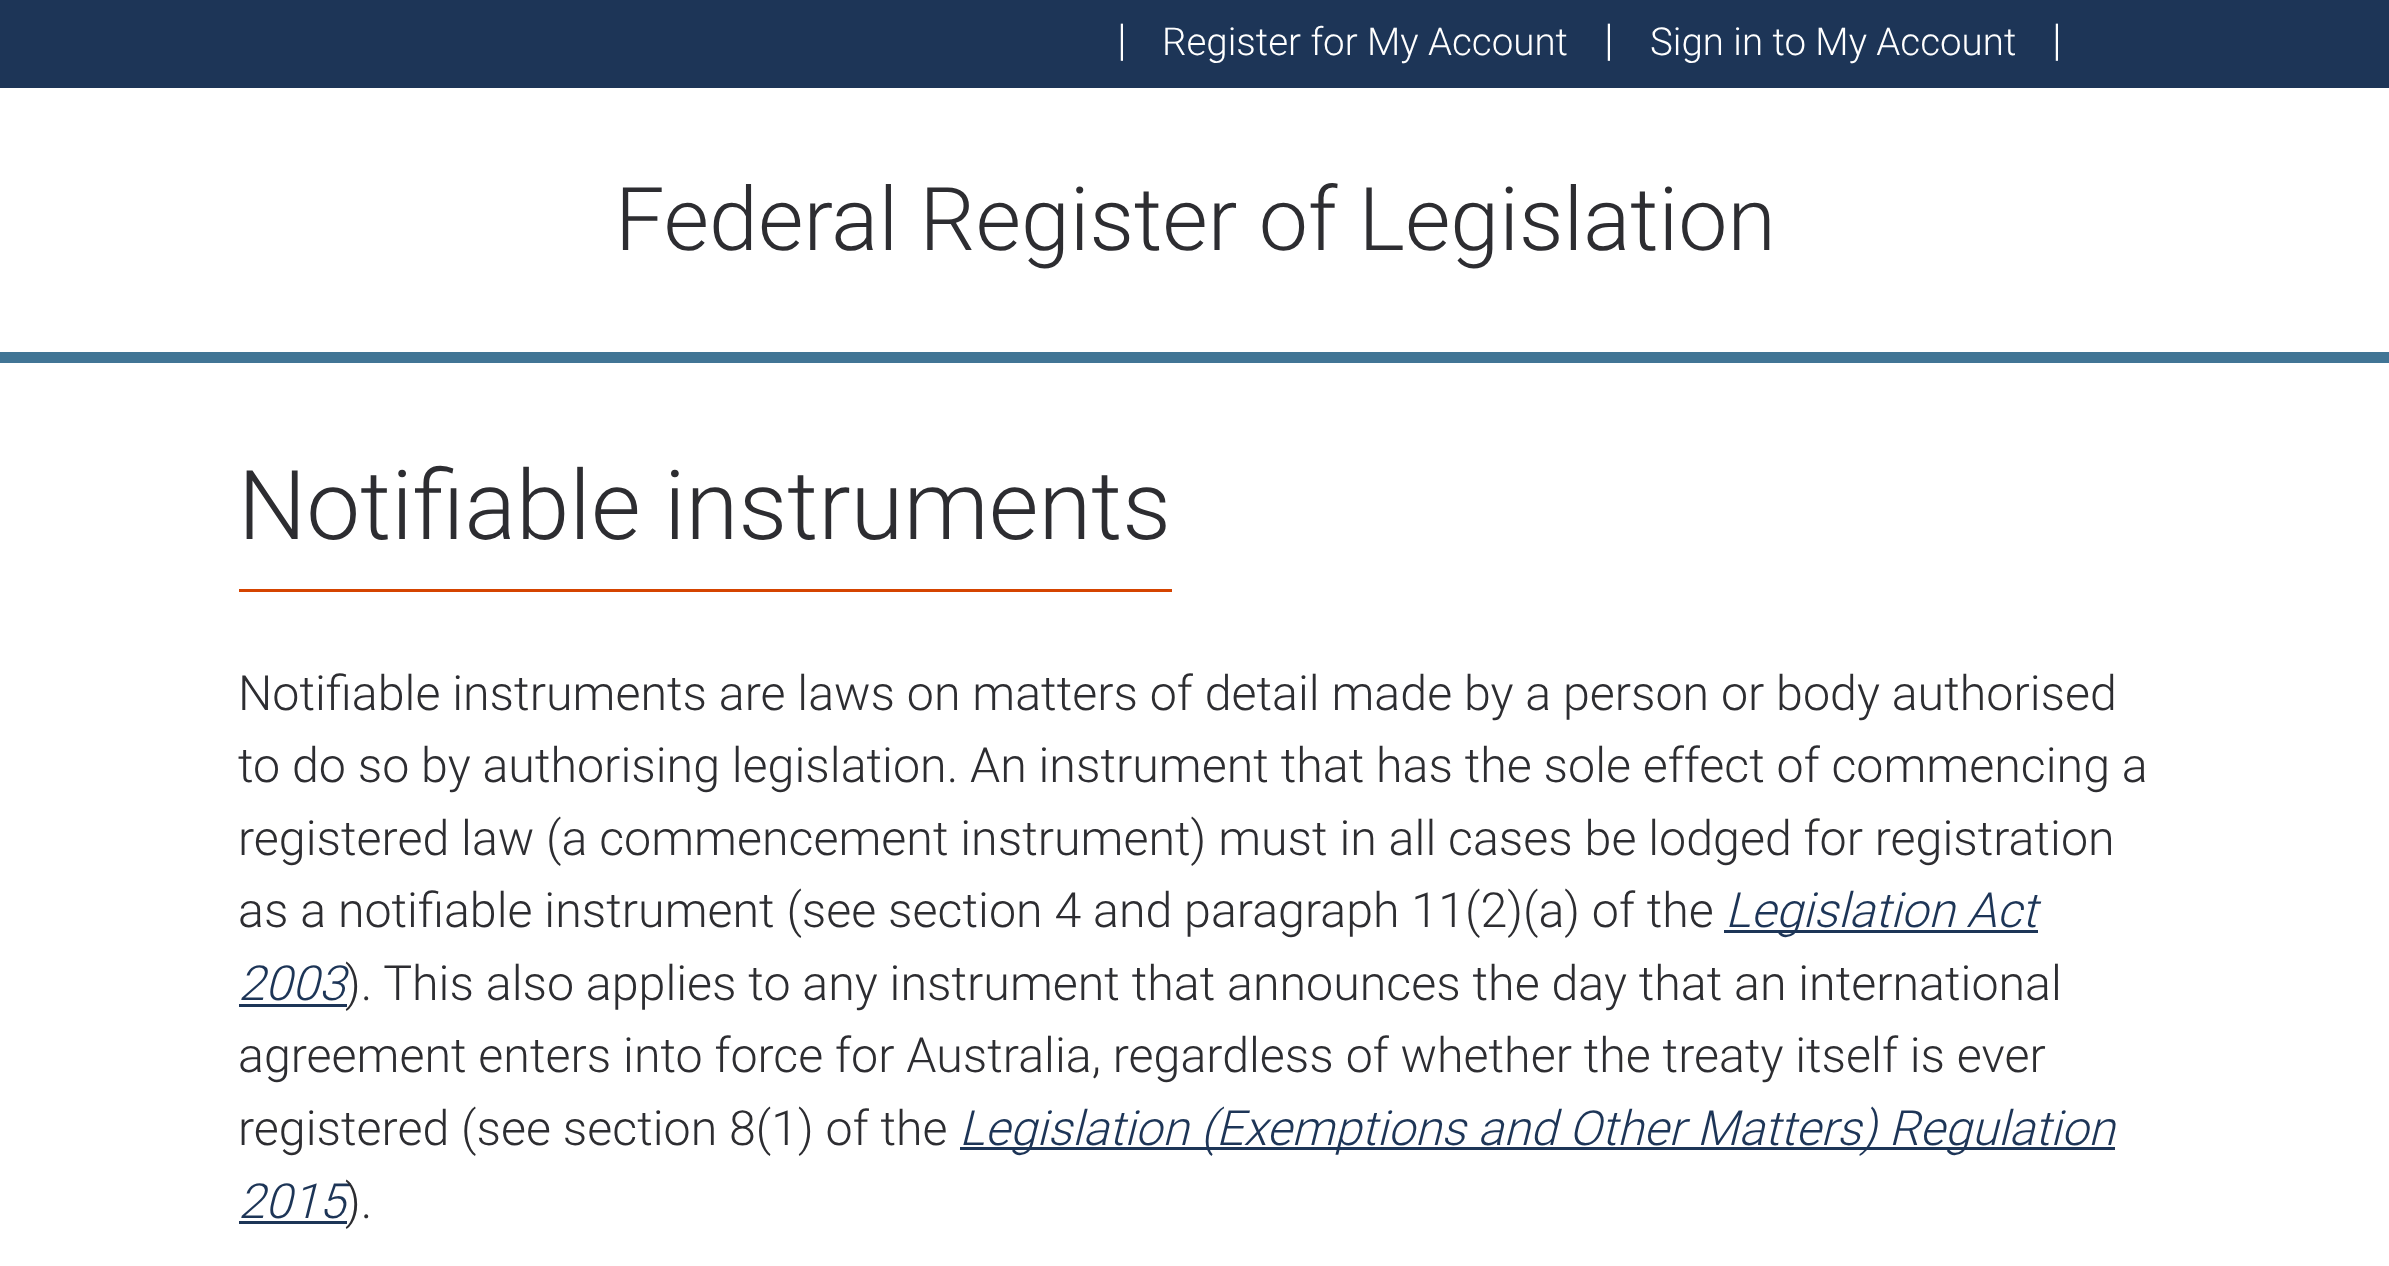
(async () => {
    const canvas = document.querySelector("canvas");
    canvas.width = 2389;
    canvas.height = 1266;
    const context = canvas.getContext("2d");
    context.miterLimit = 4;
    context.fontKerning = "normal";
    function write(s, x, y, font, color) {
        context.font = font;
        context.fillStyle = color;
        context.fillText(s, x, y);
    }
    function block(x, y, w, h, color) {
        context.fillStyle = color;
        context.fillRect(x, y, w, h);
    }

    block(0, 0, 2389, 1266, "rgb(255, 255, 255)");
    block(0, 352, 2389, 11, "rgb(65, 117, 149)");
    block(0, 0, 2389, 88, "rgb(29, 53, 87)");
    write("|", 1117, 55, "300 44px Roboto", "rgb(255, 255, 255)");
    write("Register for My Account", 1162, 55, "300 38.5px Roboto", "rgb(255, 255, 255)");
    write("|", 1604, 55, "300 44px Roboto", "rgb(255, 255, 255)");
    write("Sign in to My Account", 1650, 55, "300 38.5px Roboto", "rgb(255, 255, 255)");
    write("|", 2052, 55, "300 44px Roboto", "rgb(255, 255, 255)");
    write("Federal Register of Legislation", 615, 250, "300 88px Roboto", "rgb(45, 45, 49)");
    block(239, 589, 933, 3, "rgb(213, 68, 0)");
    write("Notifiable instruments", 238, 539, "300 96.25px Roboto", "rgb(45, 45, 49)");
    write("Notifiable instruments are laws on matters of detail made by a person or body authorised", 238, 710, "300 48.4px Roboto", "rgb(45, 45, 49)");
    write("to do so by authorising legislation. An instrument that has the sole effect of commencing a", 238, 782, "300 48.4px Roboto", "rgb(45, 45, 49)");
    write("registered law (a commencement instrument) must in all cases be lodged for registration", 238, 855, "300 48.4px Roboto", "rgb(45, 45, 49)");
    write("as a notifiable instrument (see section 4 and paragraph 11(2)(a) of the", 238, 927, "300 48.4px Roboto", "rgb(45, 45, 49)");
    block(1724, 930, 314, 3, "rgb(29, 53, 87)");
    write("Legislation Act", 1725, 927, "italic 300 48.4px Roboto", "rgb(29, 53, 87)");
    write("2003", 238, 1000, "italic 300 48.4px Roboto", "rgb(29, 53, 87)");
    block(239, 1004, 108, 3, "rgb(29, 53, 87)");
    write("). This also applies to any instrument that announces the day that an international", 345, 1000, "300 48.4px Roboto", "rgb(45, 45, 49)");
    write("agreement enters into force for Australia, regardless of whether the treaty itself is ever", 238, 1072, "300 48.4px Roboto", "rgb(45, 45, 49)");
    write("registered (see section 8(1) of the", 238, 1145, "300 48.4px Roboto", "rgb(45, 45, 49)");
    block(960, 1147, 1155, 3, "rgb(29, 53, 87)");
    write("Legislation (Exemptions and Other Matters) Regulation", 959, 1145, "italic 300 48.4px Roboto", "rgb(29, 53, 87)");
    write("2015", 238, 1218, "italic 300 48.4px Roboto", "rgb(29, 53, 87)");
    block(239, 1221, 108, 3, "rgb(29, 53, 87)");
    write(").", 345, 1218, "300 48.4px Roboto", "rgb(45, 45, 49)");
})();
